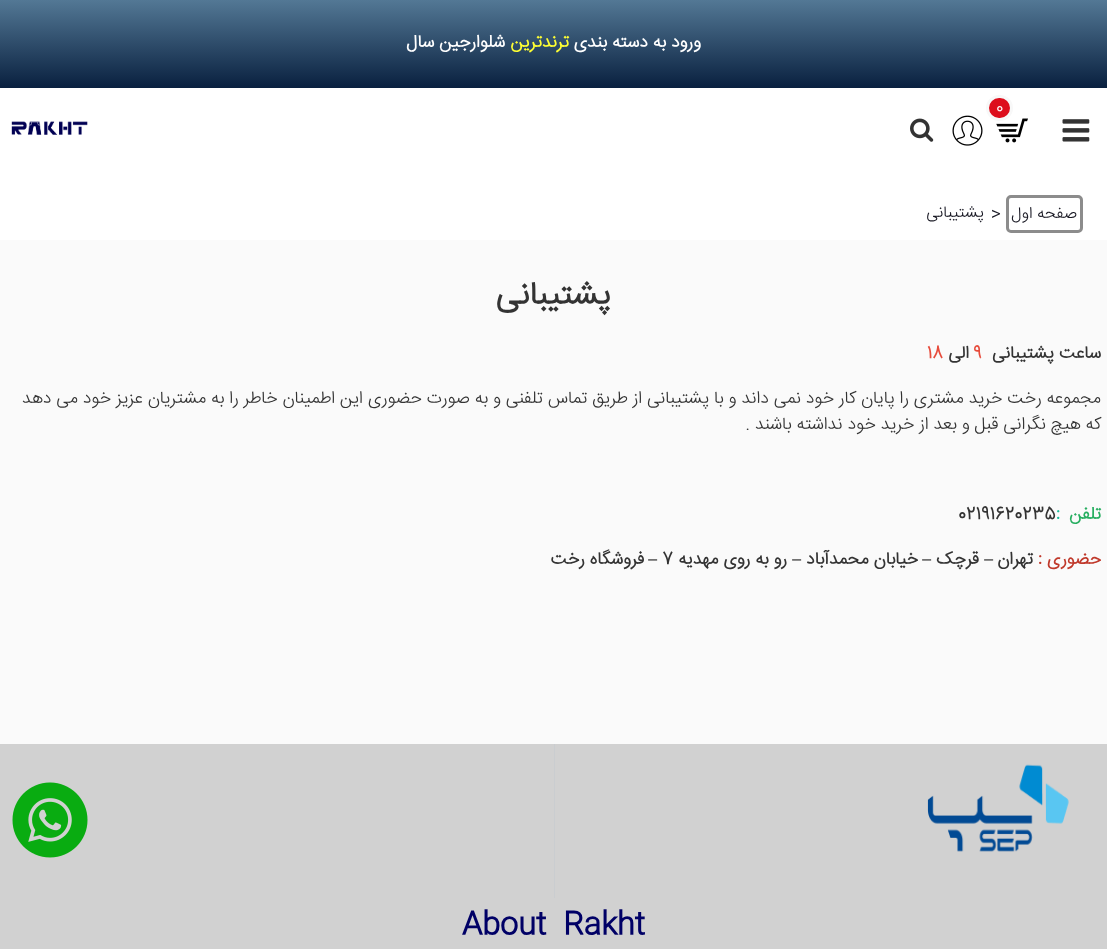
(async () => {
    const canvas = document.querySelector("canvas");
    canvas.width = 1107;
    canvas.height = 949;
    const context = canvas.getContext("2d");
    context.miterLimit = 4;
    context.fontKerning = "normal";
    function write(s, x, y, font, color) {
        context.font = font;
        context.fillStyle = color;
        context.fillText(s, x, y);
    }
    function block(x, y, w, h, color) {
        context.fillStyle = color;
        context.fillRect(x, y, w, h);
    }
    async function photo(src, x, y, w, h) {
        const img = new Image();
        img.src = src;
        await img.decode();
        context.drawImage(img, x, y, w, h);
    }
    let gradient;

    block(0, 0, 1107, 949, "rgb(250, 250, 250)");
    gradient = context.createLinearGradient(554, 88, 554, 0);
    gradient.addColorStop(0, "rgb(9, 32, 63)");
    gradient.addColorStop(1, "rgb(83, 120, 149)");
    context.fillStyle = gradient;
    context.fillRect(0, 0, 1107, 88);
    context.direction = "rtl";
    write("ورود به دسته بندی", 701, 47, "bold 17.5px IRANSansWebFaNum", "rgb(255, 255, 255)");
    write("ترندترین", 569, 47, "bold 17.5px IRANSansWebFaNum", "rgb(255, 255, 51)");
    write("شلوارجین سال", 505, 47, "bold 17.5px IRANSansWebFaNum", "rgb(255, 255, 255)");
    block(0, 88, 1107, 152, "rgb(255, 255, 255)");
    await photo("media/1.png", 996, 118, 32, 25);
    context.fillStyle = "rgb(221, 14, 28)";
    context.beginPath();
    context.roundRect(987.5, 96.5, 24, 23, 11.5);
    context.fill();
    context.strokeStyle = "rgb(248, 248, 248)";
    context.lineWidth = 3;
    context.stroke();
    context.direction = "ltr";
    write("0", 996, 112, "300 16.25px IRANSansWebFaNum", "rgb(255, 255, 255)");
    await photo("media/2.png", 1062, 119, 28, 23);
    await photo("media/3.png", 952, 115, 31, 31);
    await photo("media/4.png", 910, 118, 24, 24);
    await photo("media/5.png", 11, 121, 77, 14);
    context.beginPath();
    context.roundRect(1007.5, 196.5, 74, 35, 3.5);
    context.strokeStyle = "rgb(140, 140, 140)";
    context.stroke();
    context.direction = "rtl";
    write("صفحه اول", 1077, 218, "300 16.25px IRANSansWebFaNum", "rgb(24, 24, 35)");
    context.direction = "ltr";
    write(">", 991, 219, "300 17.5px IRANSansWebFaNum", "rgb(24, 24, 35)");
    context.direction = "rtl";
    write("پشتیبانی", 984, 217, "300 16.25px IRANSansWebFaNum", "rgb(24, 24, 35)");
    write("پشتیبانی", 611, 304, "bold 32.5px IRANSansWebFaNum", "rgb(51, 51, 51)");
    write("ساعت پشتیبانی", 1101, 358, "bold 17.5px IRANSansWebFaNum", "rgb(51, 51, 51)");
    context.direction = "ltr";
    write("9", 973, 358, "bold 17.5px IRANSansWebFaNum", "rgb(231, 76, 60)");
    context.direction = "rtl";
    write("الی", 969, 358, "bold 17.5px IRANSansWebFaNum", "rgb(51, 51, 51)");
    context.direction = "ltr";
    write("18", 927, 358, "bold 17.5px IRANSansWebFaNum", "rgb(231, 76, 60)");
    context.direction = "rtl";
    write("مجموعه رخت خرید مشتری را پایان کار خود نمی داند و با پشتیبانی از طریق تماس تلفنی و به صورت حضوری این اطمینان خاطر را به مشتریان عزیز خود می دهد", 1101, 403, "300 17.5px IRANSansWebFaNum", "rgb(51, 51, 51)");
    write("که هیچ نگرانی قبل و بعد از خرید خود نداشته باشند .", 1101, 429, "300 17.5px IRANSansWebFaNum", "rgb(51, 51, 51)");
    write("تلفن", 1101, 519, "bold 17.5px IRANSansWebFaNum", "rgb(39, 174, 96)");
    context.direction = "ltr";
    write(":", 1056, 519, "bold 17.5px IRANSansWebFaNum", "rgb(26, 188, 156)");
    write("02191620235", 958, 519, "bold 17.5px IRANSansWebFaNum", "rgb(51, 51, 51)");
    context.direction = "rtl";
    write("حضوری :", 1101, 564, "bold 17.5px IRANSansWebFaNum", "rgb(192, 57, 43)");
    write("تهران", 1033, 564, "bold 17.5px IRANSansWebFaNum", "rgb(51, 51, 51)");
    write("–", 993, 564, "bold 17.5px Liberation Serif", "rgb(51, 51, 51)");
    write("قرچک", 979, 564, "bold 17.5px IRANSansWebFaNum", "rgb(51, 51, 51)");
    write("–", 931, 564, "bold 17.5px Liberation Serif", "rgb(51, 51, 51)");
    write("خیابان محمدآباد", 918, 564, "bold 17.5px IRANSansWebFaNum", "rgb(51, 51, 51)");
    write("–", 801, 564, "bold 17.5px Liberation Serif", "rgb(51, 51, 51)");
    write("رو به روی مهدیه", 787, 564, "bold 17.5px IRANSansWebFaNum", "rgb(51, 51, 51)");
    context.direction = "ltr";
    write("7", 662, 564, "bold 17.5px IRANSansWebFaNum", "rgb(51, 51, 51)");
    context.direction = "rtl";
    write("–", 657, 564, "bold 17.5px Liberation Serif", "rgb(51, 51, 51)");
    write("فروشگاه رخت", 644, 564, "bold 17.5px IRANSansWebFaNum", "rgb(51, 51, 51)");
    block(0, 744, 1107, 205, "rgb(209, 209, 209)");
    block(554, 744, 1, 154, "rgb(202, 205, 208)");
    await photo("media/6.png", 927, 764, 142, 88);
    context.direction = "ltr";
    write("About  Rakht", 462, 933, "bold 30px IRANSansWebFaNum", "rgb(0, 0, 102)");
    await photo("media/7.png", 12, 782, 76, 76);
})();
